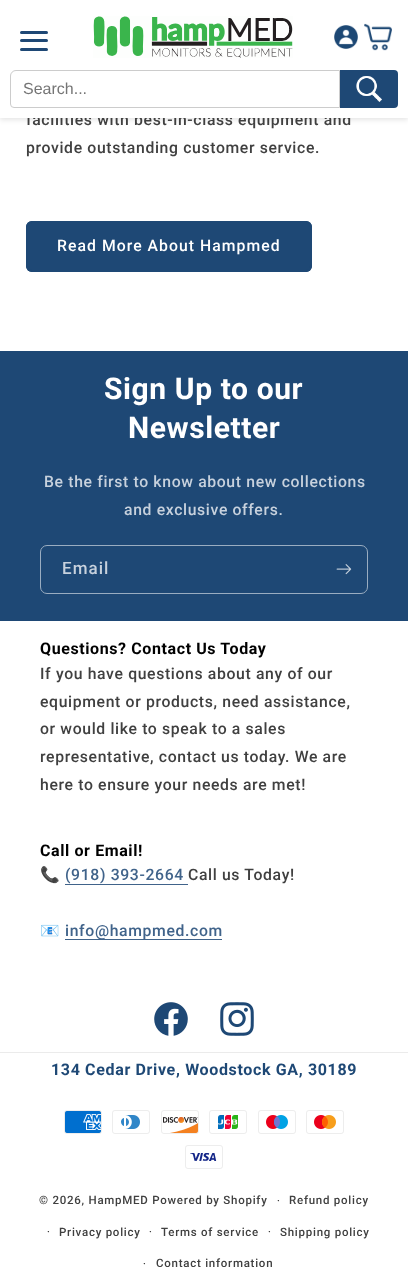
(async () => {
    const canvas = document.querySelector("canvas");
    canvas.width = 408;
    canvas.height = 1280;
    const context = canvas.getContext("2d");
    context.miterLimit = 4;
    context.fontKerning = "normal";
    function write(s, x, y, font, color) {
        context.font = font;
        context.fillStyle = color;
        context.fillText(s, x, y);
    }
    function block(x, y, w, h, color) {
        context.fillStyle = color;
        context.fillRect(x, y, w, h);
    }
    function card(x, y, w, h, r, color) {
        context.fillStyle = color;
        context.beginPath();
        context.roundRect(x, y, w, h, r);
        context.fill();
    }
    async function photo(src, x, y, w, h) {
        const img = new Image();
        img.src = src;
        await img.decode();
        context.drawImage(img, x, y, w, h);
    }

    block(0, 0, 408, 1280, "rgb(255, 255, 255)");
    context.fillStyle = "rgba(0, 0, 0, 0.1)";
    context.filter = "blur(2.5px)";
    context.beginPath();
    context.rect(0, 2, 408, 118);
    context.fill();
    context.filter = "none";
    context.letterSpacing = "0.65px";
    write("facilities with best-in-class equipment and", 26, 125, "500 15.75px Roboto", "rgb(64, 64, 64)");
    block(0, 0, 408, 118, "rgb(255, 255, 255)");
    card(20, 31, 28, 3, 1.5, "rgb(30, 72, 117)");
    card(20, 39, 28, 3, 1.5, "rgb(30, 72, 117)");
    card(20, 48, 28, 3, 1.5, "rgb(30, 72, 117)");
    await photo("media/1.png", 93, 16, 200, 42);
    await photo("media/2.png", 334, 25, 24, 24);
    await photo("media/3.png", 364, 23, 28, 28);
    context.beginPath();
    context.roundRect(10.5, 70.5, 329, 37, [5.5, 0, 0, 3.5]);
    context.strokeStyle = "rgb(204, 204, 204)";
    context.stroke();
    context.letterSpacing = "0px";
    write("Search...", 23, 94, "16px Liberation Sans", "rgb(117, 117, 117)");
    context.fillStyle = "rgb(30, 72, 117)";
    context.beginPath();
    context.roundRect(340, 70, 58, 38, [0, 4, 4, 0]);
    context.fill();
    await photo("media/4.png", 356, 76, 26, 26);
    context.letterSpacing = "0.65px";
    write("provide outstanding customer service.", 26, 153, "500 15.75px Roboto", "rgb(64, 64, 64)");
    card(26, 221, 286, 51, 6, "rgb(30, 72, 117)");
    context.beginPath();
    context.roundRect(27, 222, 284, 49, 5);
    context.strokeStyle = "rgb(30, 72, 117)";
    context.lineWidth = 2;
    context.stroke();
    context.letterSpacing = "1.05px";
    write("Read More About Hampmed", 57, 251, "500 15.75px Roboto", "rgb(255, 255, 255)");
    block(0, 351, 408, 270, "rgb(30, 72, 117)");
    context.letterSpacing = "0.6px";
    write("Sign Up to our", 104, 399, "bold 30px Roboto", "rgb(255, 255, 255)");
    write("Newsletter", 128, 438, "bold 30px Roboto", "rgb(255, 255, 255)");
    context.letterSpacing = "0.65px";
    write("Be the first to know about new collections", 44, 487, "500 15.75px Roboto", "rgb(199, 209, 221)");
    write("and exclusive offers.", 124, 515, "500 15.75px Roboto", "rgb(199, 209, 221)");
    context.beginPath();
    context.roundRect(40.5, 545.5, 327, 48, 6.5);
    context.strokeStyle = "rgb(154, 173, 193)";
    context.lineWidth = 1;
    context.stroke();
    context.letterSpacing = "1.05px";
    write("Email", 62, 574, "500 17px Roboto", "rgb(199, 209, 221)");
    await photo("media/5.png", 336, 564, 16, 11);
    context.letterSpacing = "0.6px";
    write("Questions? Contact Us Today", 40, 654, "bold 16px Roboto", "rgb(0, 0, 0)");
    context.letterSpacing = "0.65px";
    write("If you have questions about any of our", 40, 679, "500 15.75px Roboto", "rgb(64, 64, 64)");
    write("equipment or products, need assistance,", 40, 707, "500 15.75px Roboto", "rgb(64, 64, 64)");
    write("or would like to speak to a sales", 40, 734, "500 15.75px Roboto", "rgb(64, 64, 64)");
    write("representative, contact us today. We are", 40, 762, "500 15.75px Roboto", "rgb(64, 64, 64)");
    write("here to ensure your needs are met!", 40, 790, "500 15.75px Roboto", "rgb(64, 64, 64)");
    context.letterSpacing = "0.6px";
    write("Call or Email!", 40, 856, "bold 16px Roboto", "rgb(0, 0, 0)");
    context.letterSpacing = "0.65px";
    write("📞", 40, 880, "15.75px Noto Color Emoji", "rgb(64, 64, 64)");
    write("(918) 393-2664", 65, 880, "500 15.75px Roboto", "rgb(64, 99, 138)");
    block(65, 884, 123, 1, "rgb(64, 99, 138)");
    write("Call us Today!", 188, 880, "500 15.75px Roboto", "rgb(64, 64, 64)");
    write("📧", 40, 936, "15.75px Noto Color Emoji", "rgb(64, 64, 64)");
    block(65, 939, 157, 1, "rgb(64, 99, 138)");
    write("info@hampmed.com", 65, 936, "500 15.75px Roboto", "rgb(64, 99, 138)");
    await photo("media/6.png", 154, 1002, 34, 34);
    await photo("media/7.png", 220, 1002, 34, 34);
    block(0, 1052, 408, 1, "rgb(235, 235, 235)");
    write("134 Cedar Drive, Woodstock GA, 30189", 51, 1075, "bold 16px Roboto", "rgb(30, 72, 117)");
    await photo("media/8.png", 64, 1110, 38, 24);
    await photo("media/9.png", 112, 1110, 38, 24);
    await photo("media/10.png", 161, 1110, 38, 24);
    await photo("media/11.png", 209, 1110, 38, 24);
    await photo("media/12.png", 258, 1110, 38, 24);
    await photo("media/13.png", 306, 1110, 38, 24);
    await photo("media/14.png", 185, 1145, 38, 24);
    context.letterSpacing = "0.75px";
    write("© 2026, HampMED Powered by Shopify", 39, 1204, "500 11.5px Roboto", "rgb(64, 64, 64)");
    write("·", 277, 1204, "500 10px Roboto", "rgb(64, 64, 64)");
    write("Refund policy", 289, 1204, "500 11.5px Roboto", "rgb(64, 64, 64)");
    write("·", 47, 1235, "500 10px Roboto", "rgb(64, 64, 64)");
    write("Privacy policy", 59, 1236, "500 11.5px Roboto", "rgb(64, 64, 64)");
    write("·", 149, 1235, "500 10px Roboto", "rgb(64, 64, 64)");
    write("Terms of service", 161, 1236, "500 11.5px Roboto", "rgb(64, 64, 64)");
    write("·", 268, 1235, "500 10px Roboto", "rgb(64, 64, 64)");
    write("Shipping policy", 280, 1236, "500 11.5px Roboto", "rgb(64, 64, 64)");
    write("·", 143, 1267, "500 10px Roboto", "rgb(64, 64, 64)");
    write("Contact information", 156, 1267, "500 11.5px Roboto", "rgb(64, 64, 64)");
})();
